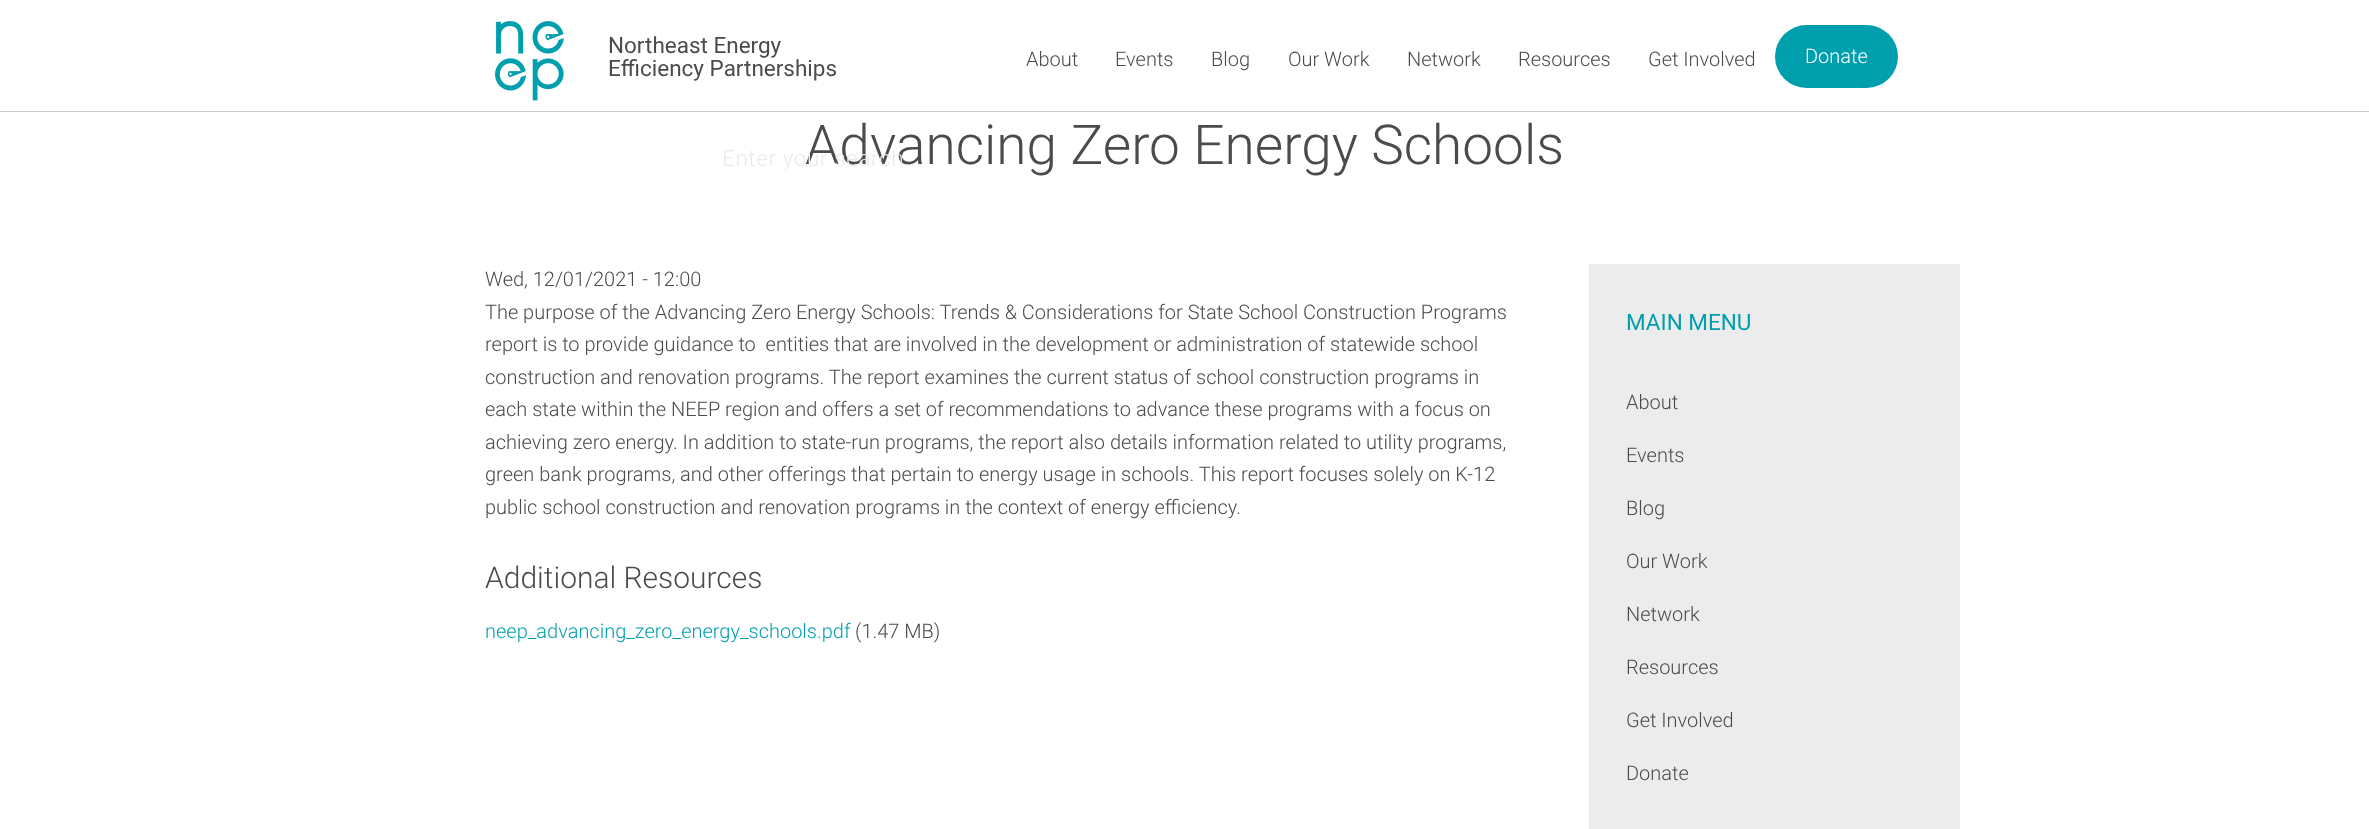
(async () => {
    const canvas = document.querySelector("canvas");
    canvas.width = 2369;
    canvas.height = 829;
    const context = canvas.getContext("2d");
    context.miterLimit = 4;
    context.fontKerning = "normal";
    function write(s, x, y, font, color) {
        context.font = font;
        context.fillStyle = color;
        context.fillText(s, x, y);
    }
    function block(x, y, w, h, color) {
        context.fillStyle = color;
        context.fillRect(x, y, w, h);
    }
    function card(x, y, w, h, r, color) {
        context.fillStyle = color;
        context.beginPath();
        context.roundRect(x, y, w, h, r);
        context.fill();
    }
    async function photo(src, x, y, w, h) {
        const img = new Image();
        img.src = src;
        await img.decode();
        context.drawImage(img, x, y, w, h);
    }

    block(0, 0, 2369, 829, "rgb(255, 255, 255)");
    block(0, 111, 2369, 1, "rgb(201, 201, 201)");
    await photo("media/1.png", 495, 21, 69, 80);
    write("Northeast Energy", 608, 53, "22.5px Roboto", "rgb(75, 75, 75)");
    write("Efficiency Partnerships", 608, 76, "22.5px Roboto", "rgb(75, 75, 75)");
    write("About", 1026, 66, "300 20px Roboto", "rgb(75, 75, 75)");
    write("Events", 1115, 66, "300 20px Roboto", "rgb(75, 75, 75)");
    write("Blog", 1211, 66, "300 20px Roboto", "rgb(75, 75, 75)");
    write("Our Work", 1288, 66, "300 20px Roboto", "rgb(75, 75, 75)");
    write("Network", 1407, 66, "300 20px Roboto", "rgb(75, 75, 75)");
    write("Resources", 1518, 66, "300 20px Roboto", "rgb(75, 75, 75)");
    write("Get Involved", 1648, 66, "300 20px Roboto", "rgb(75, 75, 75)");
    card(1775, 25, 123, 63, 31.5, "rgb(0, 159, 174)");
    write("Donate", 1805, 63, "300 20px Roboto", "rgb(255, 255, 255)");
    write("Advancing Zero Energy Schools", 805, 164, "300 55px Roboto", "rgb(75, 75, 75)");
    context.letterSpacing = "0.6px";
    write("Enter your search...", 722, 166, "300 22.5px Roboto", "rgb(234, 234, 234)");
    context.letterSpacing = "0px";
    write("Wed, 12/01/2021 - 12:00", 485, 286, "300 20px Roboto", "rgb(75, 75, 75)");
    write("The purpose of the Advancing Zero Energy Schools: Trends & Considerations for State School Construction Programs", 485, 319, "300 20px Roboto", "rgb(75, 75, 75)");
    write("report is to provide guidance to  entities that are involved in the development or administration of statewide school", 485, 351, "300 20px Roboto", "rgb(75, 75, 75)");
    write("construction and renovation programs. The report examines the current status of school construction programs in", 485, 384, "300 20px Roboto", "rgb(75, 75, 75)");
    write("each state within the NEEP region and offers a set of recommendations to advance these programs with a focus on", 485, 416, "300 20px Roboto", "rgb(75, 75, 75)");
    write("achieving zero energy. In addition to state-run programs, the report also details information related to utility programs,", 485, 449, "300 20px Roboto", "rgb(75, 75, 75)");
    write("green bank programs, and other offerings that pertain to energy usage in schools. This report focuses solely on K-12", 485, 481, "300 20px Roboto", "rgb(75, 75, 75)");
    write("public school construction and renovation programs in the context of energy efficiency.", 485, 514, "300 20px Roboto", "rgb(75, 75, 75)");
    write("Additional Resources", 485, 588, "300 30px Roboto", "rgb(75, 75, 75)");
    write("neep_advancing_zero_energy_schools.pdf", 485, 638, "300 20px Roboto", "rgb(0, 159, 174)");
    write("(1.47 MB)", 855, 638, "300 20px Roboto", "rgb(75, 75, 75)");
    block(1589, 264, 371, 565, "rgb(236, 236, 236)");
    write("MAIN MENU", 1626, 330, "22.5px Roboto", "rgb(0, 159, 174)");
    write("About", 1626, 409, "300 20px Roboto", "rgb(75, 75, 75)");
    write("Events", 1626, 462, "300 20px Roboto", "rgb(75, 75, 75)");
    write("Blog", 1626, 515, "300 20px Roboto", "rgb(75, 75, 75)");
    write("Our Work", 1626, 568, "300 20px Roboto", "rgb(75, 75, 75)");
    write("Network", 1626, 621, "300 20px Roboto", "rgb(75, 75, 75)");
    write("Resources", 1626, 674, "300 20px Roboto", "rgb(75, 75, 75)");
    write("Get Involved", 1626, 727, "300 20px Roboto", "rgb(75, 75, 75)");
    write("Donate", 1626, 780, "300 20px Roboto", "rgb(75, 75, 75)");
})();
